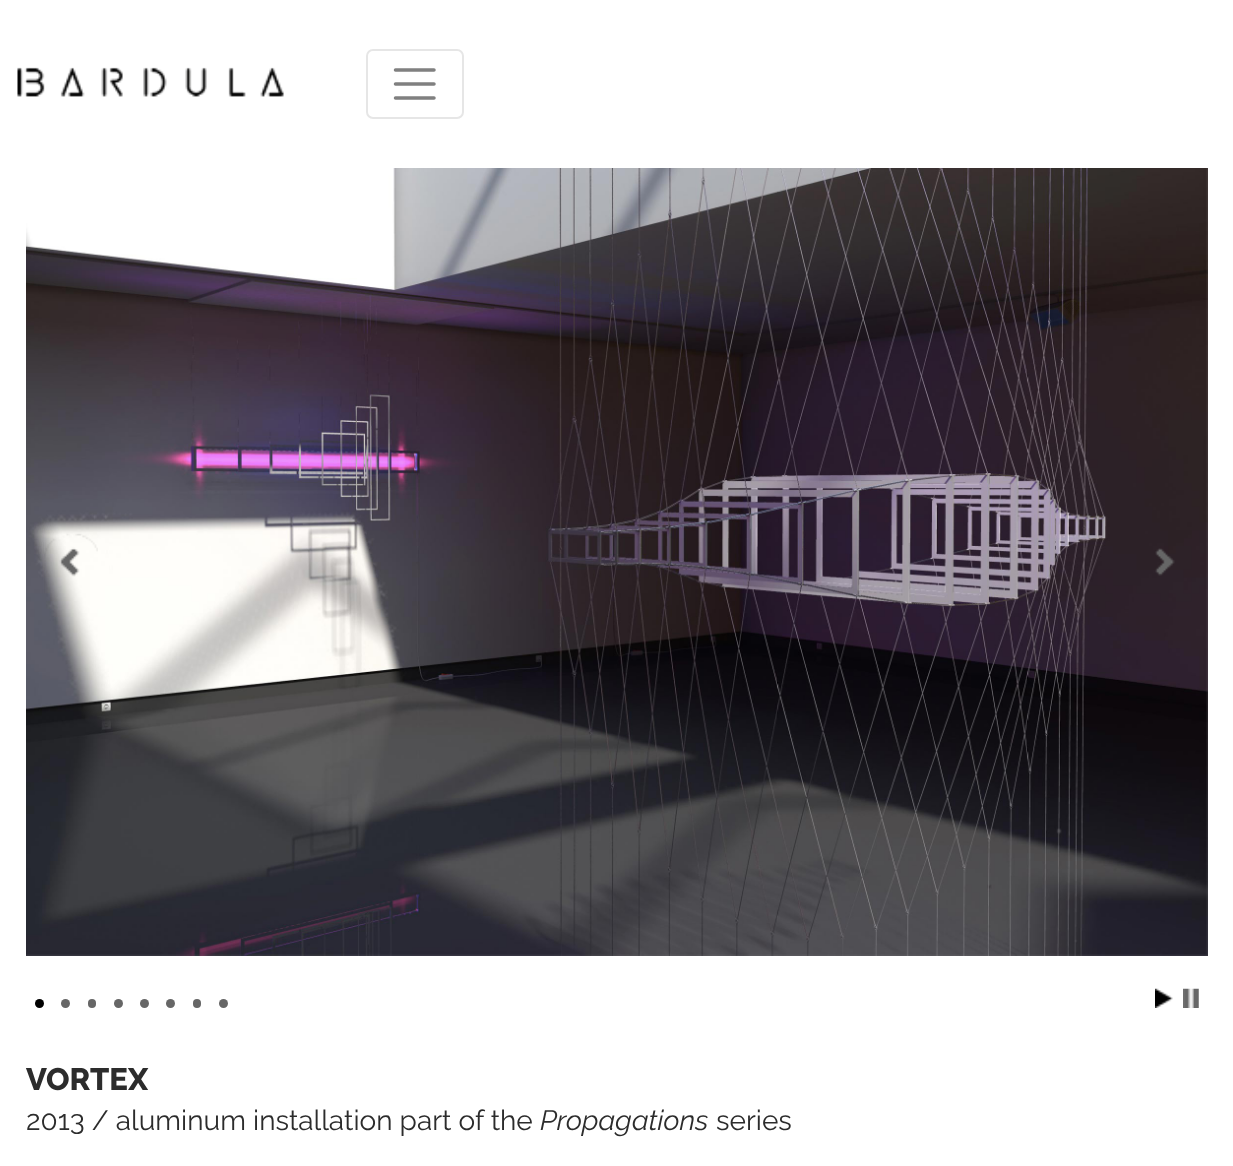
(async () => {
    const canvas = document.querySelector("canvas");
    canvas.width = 1233;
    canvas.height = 1166;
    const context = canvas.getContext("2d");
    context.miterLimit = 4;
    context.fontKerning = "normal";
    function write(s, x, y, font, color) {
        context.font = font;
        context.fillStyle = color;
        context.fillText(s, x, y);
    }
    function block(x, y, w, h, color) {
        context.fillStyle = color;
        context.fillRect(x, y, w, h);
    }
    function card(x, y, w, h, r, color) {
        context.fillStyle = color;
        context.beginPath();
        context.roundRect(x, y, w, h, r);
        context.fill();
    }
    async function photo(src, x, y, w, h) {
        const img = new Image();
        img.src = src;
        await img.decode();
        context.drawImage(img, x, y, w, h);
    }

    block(0, 0, 1233, 1166, "rgb(255, 255, 255)");
    await photo("media/1.png", 17, 67, 267, 30);
    context.beginPath();
    context.roundRect(367, 50, 96, 68, 6);
    context.strokeStyle = "rgb(230, 230, 230)";
    context.lineWidth = 2;
    context.stroke();
    context.beginPath();
    context.moveTo(395.5, 70);
    context.lineTo(434, 70);
    context.moveTo(395.5, 84);
    context.lineTo(434, 84);
    context.moveTo(395.5, 98);
    context.lineTo(434, 98);
    context.strokeStyle = "rgb(128, 128, 128)";
    context.lineWidth = 3.5;
    context.lineCap = "round";
    context.stroke();
    await photo("media/2.png", 26, 168, 1182, 788);
    await photo("media/3.png", 44, 533, 54, 44);
    await photo("media/4.png", 1155, 548, 20, 28);
    context.fillStyle = "rgb(0, 0, 0)";
    context.beginPath();
    context.arc(39.5, 1003.5, 4.5, 0, Math.PI * 2);
    context.fill();
    context.fillStyle = "rgb(102, 102, 102)";
    context.beginPath();
    context.arc(65.5, 1003.5, 4.5, 0, Math.PI * 2);
    context.fill();
    card(88, 999, 8, 9, 4, "rgb(102, 102, 102)");
    context.beginPath();
    context.arc(118.5, 1003.5, 4.5, 0, Math.PI * 2);
    context.fill();
    context.beginPath();
    context.arc(144.5, 1003.5, 4.5, 0, Math.PI * 2);
    context.fill();
    context.beginPath();
    context.arc(170.5, 1003.5, 4.5, 0, Math.PI * 2);
    context.fill();
    card(193, 999, 8, 9, 4, "rgb(102, 102, 102)");
    context.beginPath();
    context.arc(223.5, 1003.5, 4.5, 0, Math.PI * 2);
    context.fill();
    await photo("media/5.png", 1155, 988, 18, 20);
    await photo("media/6.png", 1183, 988, 16, 20);
    write("VORTEX", 26, 1090, "800 31px Raleway", "rgb(44, 44, 44)");
    write("2013 / aluminum installation part of the", 26, 1130, "28px Raleway", "rgb(44, 44, 44)");
    write("Propagations", 540, 1130, "italic 28px Raleway", "rgb(44, 44, 44)");
    write("series", 716, 1130, "28px Raleway", "rgb(44, 44, 44)");
})();
